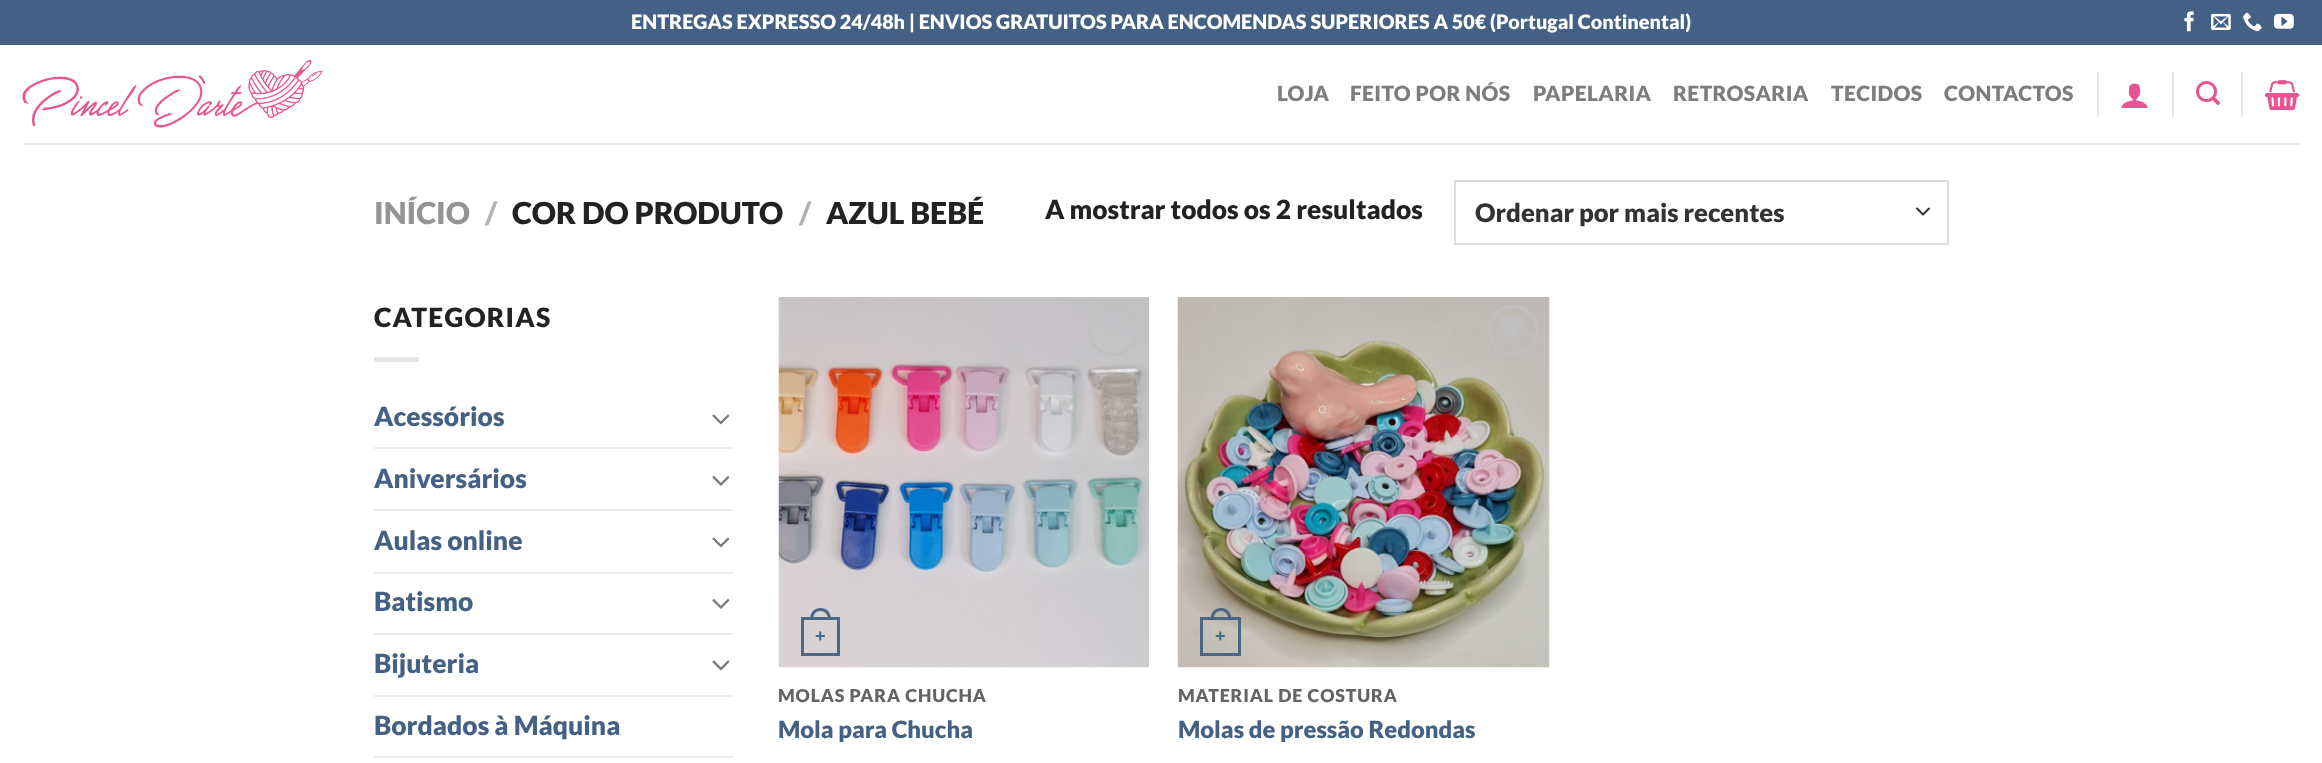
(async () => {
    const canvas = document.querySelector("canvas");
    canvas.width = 2322;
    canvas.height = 763;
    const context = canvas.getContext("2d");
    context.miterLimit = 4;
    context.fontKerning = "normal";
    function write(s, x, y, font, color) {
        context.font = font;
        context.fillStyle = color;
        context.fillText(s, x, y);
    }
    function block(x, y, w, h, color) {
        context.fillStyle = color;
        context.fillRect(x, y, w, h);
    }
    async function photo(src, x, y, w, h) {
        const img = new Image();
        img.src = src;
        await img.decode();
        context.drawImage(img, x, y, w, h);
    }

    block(0, 0, 2322, 763, "rgb(255, 255, 255)");
    block(0, 0, 2322, 45, "rgb(68, 96, 132)");
    write("ENTREGAS EXPRESSO 24/48h | ENVIOS GRATUITOS PARA ENCOMENDAS SUPERIORES A 50€ (Portugal Continental)", 631, 29, "900 19.8px Lato", "rgb(255, 255, 255)");
    await photo("media/1.png", 2184, 11, 10, 21);
    await photo("media/2.png", 2211, 13, 20, 17);
    await photo("media/3.png", 2243, 12, 19, 20);
    await photo("media/4.png", 2274, 13, 20, 16);
    await photo("media/5.png", 22, 60, 301, 68);
    context.letterSpacing = "0.4px";
    write("LOJA", 1277, 101, "900 21px Lato", "rgb(125, 125, 125)");
    write("FEITO POR NÓS", 1350, 101, "900 21px Lato", "rgb(125, 125, 125)");
    write("PAPELARIA", 1533, 101, "900 21px Lato", "rgb(125, 125, 125)");
    write("RETROSARIA", 1673, 101, "900 21px Lato", "rgb(125, 125, 125)");
    write("TECIDOS", 1831, 101, "900 21px Lato", "rgb(125, 125, 125)");
    write("CONTACTOS", 1944, 101, "900 21px Lato", "rgb(125, 125, 125)");
    block(2097, 72, 2, 45, "rgb(230, 230, 230)");
    await photo("media/6.png", 2121, 83, 27, 25);
    block(2172, 72, 2, 45, "rgb(230, 230, 230)");
    await photo("media/7.png", 2196, 81, 24, 24);
    block(2241, 72, 2, 45, "rgb(230, 230, 230)");
    await photo("media/8.png", 2265, 80, 35, 31);
    block(23, 143, 2277, 2, "rgb(233, 233, 233)");
    context.letterSpacing = "0px";
    write("INÍCIO", 374, 224, "900 30.25px Lato", "rgb(148, 148, 148)");
    write("/", 485, 224, "900 30.25px Lato", "rgb(178, 178, 178)");
    write("COR DO PRODUTO", 512, 224, "900 30.25px Lato", "rgb(34, 34, 34)");
    write("/", 799, 224, "900 30.25px Lato", "rgb(178, 178, 178)");
    write("AZUL BEBÉ", 826, 224, "900 30.25px Lato", "rgb(34, 34, 34)");
    write("A mostrar todos os 2 resultados", 1045, 219, "900 26.4px Lato", "rgb(34, 34, 34)");
    context.beginPath();
    context.moveTo(1917, 208.5);
    context.lineTo(1923, 214.5);
    context.lineTo(1929, 208.5);
    context.strokeStyle = "rgb(51, 51, 51)";
    context.lineWidth = 2;
    context.lineCap = "round";
    context.lineJoin = "round";
    context.stroke();
    context.strokeStyle = "rgb(221, 221, 221)";
    context.lineJoin = "miter";
    context.strokeRect(1455, 181, 493, 63);
    write("Ordenar por mais recentes", 1475, 222, "900 25.6px Lato", "rgb(51, 51, 51)");
    context.letterSpacing = "1.25px";
    write("CATEGORIAS", 374, 327, "900 26.4px Lato", "rgb(34, 34, 34)");
    block(374, 357, 45, 5, "rgb(230, 230, 230)");
    context.letterSpacing = "0px";
    write("Acessórios", 374, 426, "900 26.4px Lato", "rgb(68, 96, 132)");
    await photo("media/9.png", 712, 414, 18, 11);
    block(374, 447, 360, 2, "rgb(236, 236, 236)");
    write("Aniversários", 374, 488, "900 26.4px Lato", "rgb(68, 96, 132)");
    await photo("media/10.png", 712, 476, 18, 10);
    block(374, 509, 360, 2, "rgb(236, 236, 236)");
    write("Aulas online", 374, 550, "900 26.4px Lato", "rgb(68, 96, 132)");
    await photo("media/9.png", 712, 537, 18, 11);
    block(374, 572, 360, 2, "rgb(236, 236, 236)");
    write("Batismo", 374, 611, "900 26.4px Lato", "rgb(68, 96, 132)");
    await photo("media/10.png", 712, 599, 18, 10);
    block(374, 633, 360, 2, "rgb(236, 236, 236)");
    write("Bijuteria", 374, 673, "900 26.4px Lato", "rgb(68, 96, 132)");
    await photo("media/9.png", 712, 660, 18, 11);
    block(374, 695, 360, 2, "rgb(236, 236, 236)");
    write("Bordados à Máquina", 374, 735, "900 26.4px Lato", "rgb(68, 96, 132)");
    block(374, 756, 360, 2, "rgb(236, 236, 236)");
    await photo("media/11.png", 778, 297, 371, 371);
    context.beginPath();
    context.arc(1113.5, 330.5, 24, 0, Math.PI * 2);
    context.strokeStyle = "rgb(192, 192, 192)";
    context.lineWidth = 3;
    context.stroke();
    await photo("media/12.png", 1112, 335, 3, 2);
    context.strokeStyle = "rgba(68, 96, 132, 0.95)";
    context.strokeRect(802.5, 618.5, 36, 36);
    context.fillStyle = "rgb(75, 102, 136)";
    context.beginPath();
    context.moveTo(820.5, 608);
    context.bezierCurveTo(827.5, 608, 831, 613.5, 831, 620);
    context.lineTo(810, 620);
    context.bezierCurveTo(810, 613.5, 813.5, 608, 820.5, 608);
    context.closePath();
    context.moveTo(820.5, 611);
    context.bezierCurveTo(826, 611, 828, 615.5, 828, 620);
    context.lineTo(813, 620);
    context.bezierCurveTo(813, 615.5, 815, 611, 820.5, 611);
    context.closePath();
    context.fill("evenodd");
    write("+", 815, 642, "bold 18px Liberation Sans", "rgb(75, 102, 136)");
    context.letterSpacing = "0.9px";
    write("MOLAS PARA CHUCHA", 778, 702, "900 17.75px Lato", "rgb(100, 100, 100)");
    context.letterSpacing = "0px";
    write("Mola para Chucha", 778, 738, "900 23.75px Lato", "rgb(68, 96, 132)");
    await photo("media/13.png", 1177, 297, 373, 371);
    context.beginPath();
    context.arc(1513.5, 330.5, 24, 0, Math.PI * 2);
    context.strokeStyle = "rgb(192, 192, 192)";
    context.stroke();
    await photo("media/14.png", 1500, 316, 25, 21);
    context.strokeStyle = "rgba(68, 96, 132, 0.95)";
    context.strokeRect(1201.5, 618.5, 38, 36);
    context.fillStyle = "rgba(68, 96, 132, 0.95)";
    context.beginPath();
    context.moveTo(1221, 608);
    context.bezierCurveTo(1228, 608, 1231.5, 613.5, 1231.5, 620);
    context.lineTo(1210.5, 620);
    context.bezierCurveTo(1210.5, 613.5, 1214, 608, 1221, 608);
    context.closePath();
    context.moveTo(1221, 611);
    context.bezierCurveTo(1226.5, 611, 1228.5, 615.5, 1228.5, 620);
    context.lineTo(1213.5, 620);
    context.bezierCurveTo(1213.5, 615.5, 1215.5, 611, 1221, 611);
    context.closePath();
    context.fill("evenodd");
    write("+", 1215, 642, "bold 18px Liberation Sans", "rgb(75, 102, 136)");
    context.letterSpacing = "0.9px";
    write("MATERIAL DE COSTURA", 1178, 702, "900 17.75px Lato", "rgb(100, 100, 100)");
    context.letterSpacing = "0px";
    write("Molas de pressão Redondas", 1178, 738, "900 23.75px Lato", "rgb(68, 96, 132)");
})();
